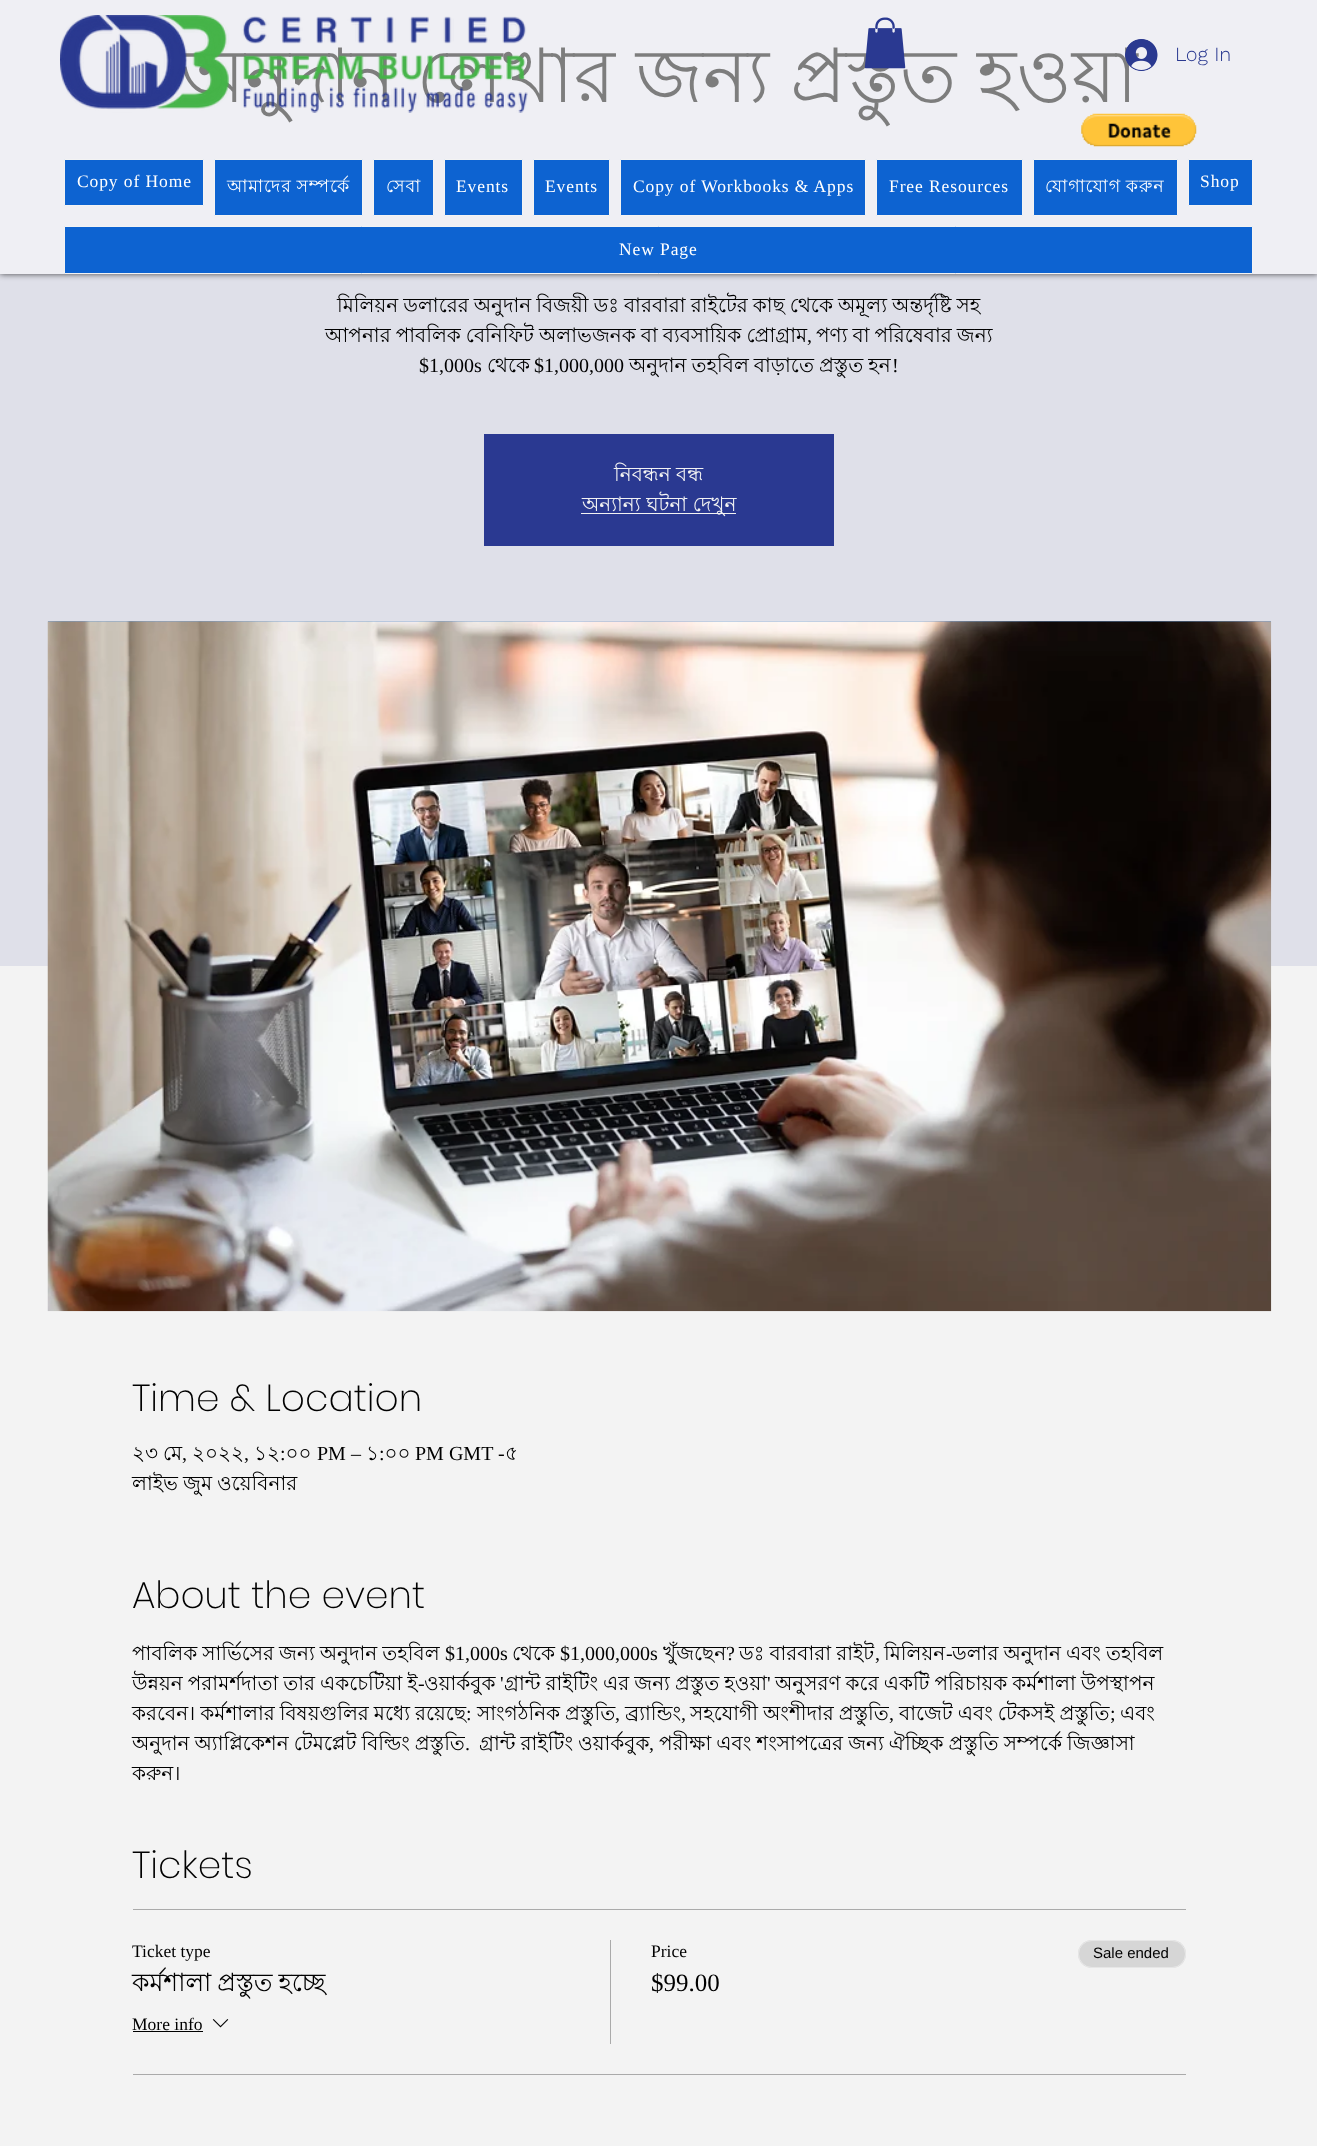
(async () => {
    const canvas = document.querySelector("canvas");
    canvas.width = 1317;
    canvas.height = 2146;
    const context = canvas.getContext("2d");
    context.miterLimit = 4;
    context.fontKerning = "normal";
    function write(s, x, y, font, color) {
        context.font = font;
        context.fillStyle = color;
        context.fillText(s, x, y);
    }
    function block(x, y, w, h, color) {
        context.fillStyle = color;
        context.fillRect(x, y, w, h);
    }
    function card(x, y, w, h, r, color) {
        context.fillStyle = color;
        context.beginPath();
        context.roundRect(x, y, w, h, r);
        context.fill();
    }
    async function photo(src, x, y, w, h) {
        const img = new Image();
        img.src = src;
        await img.decode();
        context.drawImage(img, x, y, w, h);
    }

    block(0, 0, 1317, 2146, "rgb(243, 243, 243)");
    block(0, 0, 1317, 966, "rgb(223, 224, 233)");
    context.save();
    context.beginPath();
    context.moveTo(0, 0);
    context.lineTo(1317, 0);
    context.lineTo(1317, 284);
    context.lineTo(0, 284);
    context.closePath();
    context.moveTo(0, 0);
    context.lineTo(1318, 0);
    context.lineTo(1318, 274);
    context.lineTo(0, 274);
    context.closePath();
    context.clip("evenodd");
    context.fillStyle = "rgba(0, 0, 0, 0.7)";
    context.filter = "blur(3px)";
    context.beginPath();
    context.rect(0, 0, 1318, 274);
    context.fill();
    context.filter = "none";
    context.restore();
    write("অনুদান লেখার জন্য প্রস্তুত হওয়া", 180, 102, "75px Lohit Bengali", "rgb(0, 0, 0)");
    block(0, 0, 1317, 274, "rgba(255, 255, 254, 0.49)");
    await photo("media/1.png", 60, 15, 468, 98);
    await photo("media/2.png", 864, 17, 42, 52);
    await photo("media/3.png", 1125, 39, 33, 32);
    write("Log In", 1175, 61, "300 20px Work Sans", "rgb(42, 57, 144)");
    await photo("media/4.png", 1081, 113, 116, 34);
    context.fillStyle = "rgb(13, 99, 209)";
    context.beginPath();
    context.rect(64.5, 159.5, 139, 46);
    context.fill();
    context.strokeStyle = "rgb(243, 243, 243)";
    context.stroke();
    context.letterSpacing = "0.9px";
    write("Copy of Home", 77, 187, "17.5px Liberation Serif", "rgb(255, 255, 255)");
    context.fillStyle = "rgb(13, 99, 209)";
    context.beginPath();
    context.rect(214.5, 159.5, 148, 56);
    context.fill();
    context.stroke();
    context.wordSpacing = "-1px";
    write("আমাদের সম্পর্কে", 227, 192, "17.5px Lohit Bengali", "rgb(255, 255, 255)");
    context.fillStyle = "rgb(13, 99, 209)";
    context.beginPath();
    context.rect(373.5, 159.5, 60, 56);
    context.fill();
    context.stroke();
    context.wordSpacing = "0px";
    write("সেবা", 386, 192, "17.5px Lohit Bengali", "rgb(255, 255, 255)");
    context.fillStyle = "rgb(13, 99, 209)";
    context.beginPath();
    context.rect(444.5, 159.5, 78, 56);
    context.fill();
    context.stroke();
    write("Events", 456, 192, "17.5px Liberation Serif", "rgb(255, 255, 255)");
    context.fillStyle = "rgb(13, 99, 209)";
    context.beginPath();
    context.rect(533.5, 159.5, 76, 56);
    context.fill();
    context.stroke();
    write("Events", 545, 192, "17.5px Liberation Serif", "rgb(255, 255, 255)");
    context.fillStyle = "rgb(13, 99, 209)";
    context.beginPath();
    context.rect(620.5, 159.5, 245, 56);
    context.fill();
    context.stroke();
    write("Copy of Workbooks & Apps", 633, 192, "17.5px Liberation Serif", "rgb(255, 255, 255)");
    context.fillStyle = "rgb(13, 99, 209)";
    context.beginPath();
    context.rect(876.5, 159.5, 146, 56);
    context.fill();
    context.stroke();
    write("Free Resources", 889, 192, "17.5px Liberation Serif", "rgb(255, 255, 255)");
    context.fillStyle = "rgb(13, 99, 209)";
    context.beginPath();
    context.rect(1033.5, 159.5, 144, 56);
    context.fill();
    context.stroke();
    context.wordSpacing = "-1px";
    write("যোগাযোগ করুন", 1045, 192, "17.5px Lohit Bengali", "rgb(255, 255, 255)");
    context.fillStyle = "rgb(13, 99, 209)";
    context.beginPath();
    context.rect(1188.5, 159.5, 64, 46);
    context.fill();
    context.stroke();
    context.wordSpacing = "0px";
    write("Shop", 1200, 187, "17.5px Liberation Serif", "rgb(255, 255, 255)");
    context.fillStyle = "rgb(13, 99, 209)";
    context.beginPath();
    context.rect(64.5, 226.5, 1188, 47);
    context.fill();
    context.stroke();
    write("New Page", 619, 255, "17.5px Liberation Serif", "rgb(255, 255, 255)");
    context.letterSpacing = "0px";
    context.wordSpacing = "-0.5px";
    write("মিলিয়ন ডলারের অনুদান বিজয়ী ডঃ বারবারা রাইটের কাছ থেকে অমূল্য অন্তর্দৃষ্টি সহ", 337, 312, "20px Lohit Bengali", "rgb(0, 0, 0)");
    write("আপনার পাবলিক বেনিফিট অলাভজনক বা ব্যবসায়িক প্রোগ্রাম", 325, 342, "20px Lohit Bengali", "rgb(0, 0, 0)");
    context.wordSpacing = "0px";
    write(",", 807, 342, "20px Liberation Serif", "rgb(0, 0, 0)");
    context.wordSpacing = "-0.5px";
    write("পণ্য বা পরিষেবার জন্য", 816, 342, "20px Lohit Bengali", "rgb(0, 0, 0)");
    context.wordSpacing = "0px";
    write("$1,000s", 419, 372, "20px Liberation Serif", "rgb(0, 0, 0)");
    write("থেকে", 487, 372, "20px Lohit Bengali", "rgb(0, 0, 0)");
    write("$1,000,000", 534, 372, "20px Liberation Serif", "rgb(0, 0, 0)");
    context.wordSpacing = "-0.5px";
    write("অনুদান তহবিল বাড়াতে প্রস্তুত হন", 629, 372, "20px Lohit Bengali", "rgb(0, 0, 0)");
    context.wordSpacing = "0px";
    write("!", 892, 372, "20px Liberation Serif", "rgb(0, 0, 0)");
    block(484, 434, 350, 112, "rgb(42, 57, 145)");
    write("নিবন্ধন বন্ধ", 614, 481, "20px Lohit Bengali", "rgb(243, 243, 243)");
    block(581, 513, 155, 1, "rgb(243, 243, 243)");
    write("অন্যান্য ঘটনা দেখুন", 582, 511, "20px Lohit Bengali", "rgb(243, 243, 243)");
    block(48, 621, 1223, 1, "rgb(112, 157, 209)");
    await photo("media/5.png", 47, 621, 1225, 691);
    write("Time & Location", 132, 1411, "200 37.5px Poppins", "rgb(0, 0, 0)");
    write("২৩", 132, 1460, "20px Lohit Bengali", "rgb(0, 0, 0)");
    write("মে", 163, 1460, "20px Lohit Bengali", "rgb(0, 0, 0)");
    write("২০২২", 192, 1460, "20px Lohit Bengali", "rgb(0, 0, 0)");
    write("১২ ০০", 254, 1460, "20px Lohit Bengali", "rgb(0, 0, 0)");
    write("PM –", 317, 1460, "20px Liberation Serif", "rgb(0, 0, 0)");
    write("১ ০০", 366, 1460, "20px Lohit Bengali", "rgb(0, 0, 0)");
    write("PM GMT -", 415, 1460, "20px Liberation Serif", "rgb(0, 0, 0)");
    write("৫", 505, 1460, "20px Lohit Bengali", "rgb(0, 0, 0)");
    write(",", 182, 1460, "20px Liberation Serif", "rgb(0, 0, 0)");
    write(",", 244, 1460, "20px Liberation Serif", "rgb(0, 0, 0)");
    write(":", 280, 1460, "20px Liberation Serif", "rgb(0, 0, 0)");
    write(":", 379, 1460, "20px Liberation Serif", "rgb(0, 0, 0)");
    context.wordSpacing = "-0.5px";
    write("লাইভ জুম ওয়েবিনার", 132, 1490, "20px Lohit Bengali", "rgb(0, 0, 0)");
    context.wordSpacing = "0px";
    write("About the event", 132, 1608, "200 37.5px Poppins", "rgb(0, 0, 0)");
    context.wordSpacing = "-0.5px";
    write("পাবলিক সার্ভিসের জন্য অনুদান তহবিল", 132, 1660, "20px Lohit Bengali", "rgb(0, 0, 0)");
    context.wordSpacing = "0px";
    write("$1,000s", 445, 1660, "20px Liberation Serif", "rgb(0, 0, 0)");
    write("থেকে", 512, 1660, "20px Lohit Bengali", "rgb(0, 0, 0)");
    write("$1,000,000s", 560, 1660, "20px Liberation Serif", "rgb(0, 0, 0)");
    write("খুঁজছেন", 663, 1660, "20px Lohit Bengali", "rgb(0, 0, 0)");
    write("?", 726, 1660, "20px Liberation Serif", "rgb(0, 0, 0)");
    context.wordSpacing = "-0.5px";
    write("ডঃ বারবারা রাইট", 739, 1660, "20px Lohit Bengali", "rgb(0, 0, 0)");
    context.wordSpacing = "0px";
    write("মিলিয়ন", 884, 1660, "20px Lohit Bengali", "rgb(0, 0, 0)");
    write("-", 946, 1660, "20px Liberation Serif", "rgb(0, 0, 0)");
    context.wordSpacing = "-0.5px";
    write("ডলার অনুদান এবং তহবিল", 952, 1660, "20px Lohit Bengali", "rgb(0, 0, 0)");
    context.wordSpacing = "0px";
    write(",", 875, 1660, "20px Liberation Serif", "rgb(0, 0, 0)");
    context.wordSpacing = "-0.5px";
    write("উন্নয়ন পরামর্শদাতা তার একচেটিয়া ই", 132, 1690, "20px Lohit Bengali", "rgb(0, 0, 0)");
    context.wordSpacing = "0px";
    write("ওয়ার্কবুক", 424, 1690, "20px Lohit Bengali", "rgb(0, 0, 0)");
    write("'", 500, 1690, "20px Liberation Serif", "rgb(0, 0, 0)");
    context.wordSpacing = "-0.5px";
    write("গ্রান্ট রাইটিং এর জন্য প্রস্তুত হওয়া", 504, 1690, "20px Lohit Bengali", "rgb(0, 0, 0)");
    context.wordSpacing = "0px";
    write("'", 767, 1690, "20px Liberation Serif", "rgb(0, 0, 0)");
    context.wordSpacing = "-0.5px";
    write("অনুসরণ করে একটি পরিচায়ক কর্মশালা উপস্থাপন", 775, 1690, "20px Lohit Bengali", "rgb(0, 0, 0)");
    context.wordSpacing = "0px";
    write("-", 418, 1690, "20px Liberation Serif", "rgb(0, 0, 0)");
    context.wordSpacing = "-0.5px";
    write("করবেন। কর্মশালার বিষয়গুলির মধ্যে রয়েছে", 132, 1720, "20px Lohit Bengali", "rgb(0, 0, 0)");
    context.wordSpacing = "0px";
    write(":", 466, 1720, "20px Liberation Serif", "rgb(0, 0, 0)");
    context.wordSpacing = "-0.5px";
    write("সাংগঠনিক প্রস্তুতি", 477, 1720, "20px Lohit Bengali", "rgb(0, 0, 0)");
    context.wordSpacing = "0px";
    write(",", 615, 1720, "20px Liberation Serif", "rgb(0, 0, 0)");
    write("ব্র্যান্ডিং", 625, 1720, "20px Lohit Bengali", "rgb(0, 0, 0)");
    write(",", 681, 1720, "20px Liberation Serif", "rgb(0, 0, 0)");
    context.wordSpacing = "-0.5px";
    write("সহযোগী অংশীদার প্রস্তুতি", 690, 1720, "20px Lohit Bengali", "rgb(0, 0, 0)");
    context.wordSpacing = "0px";
    write(",", 889, 1720, "20px Liberation Serif", "rgb(0, 0, 0)");
    context.wordSpacing = "-0.5px";
    write("বাজেট এবং টেকসই প্রস্তুতি", 899, 1720, "20px Lohit Bengali", "rgb(0, 0, 0)");
    context.wordSpacing = "0px";
    write(";", 1110, 1720, "20px Liberation Serif", "rgb(0, 0, 0)");
    write("এবং", 1120, 1720, "20px Lohit Bengali", "rgb(0, 0, 0)");
    context.wordSpacing = "-0.5px";
    write("অনুদান অ্যাপ্লিকেশন টেমপ্লেট বিল্ডিং প্রস্তুতি", 132, 1750, "20px Lohit Bengali", "rgb(0, 0, 0)");
    context.wordSpacing = "0px";
    write(".", 465, 1750, "20px Liberation Serif", "rgb(0, 0, 0)");
    context.wordSpacing = "-0.5px";
    write("গ্রান্ট রাইটিং ওয়ার্কবুক", 479, 1750, "20px Lohit Bengali", "rgb(0, 0, 0)");
    context.wordSpacing = "0px";
    write(",", 649, 1750, "20px Liberation Serif", "rgb(0, 0, 0)");
    context.wordSpacing = "-0.5px";
    write("পরীক্ষা এবং শংসাপত্রের জন্য ঐচ্ছিক প্রস্তুতি সম্পর্কে জিজ্ঞাসা", 659, 1750, "20px Lohit Bengali", "rgb(0, 0, 0)");
    context.wordSpacing = "0px";
    write("করুন।", 132, 1780, "20px Lohit Bengali", "rgb(0, 0, 0)");
    write("Tickets", 132, 1878, "200 37.5px Poppins", "rgb(0, 0, 0)");
    block(133, 1909, 1053, 1, "rgb(170, 170, 170)");
    block(133, 2074, 1053, 1, "rgb(170, 170, 170)");
    write("Ticket type", 132, 1957, "17.5px Liberation Serif", "rgb(0, 0, 0)");
    context.wordSpacing = "-1px";
    write("কর্মশালা প্রস্তুত হচ্ছে", 132, 1991, "25px Lohit Bengali", "rgb(0, 0, 0)");
    context.wordSpacing = "0px";
    write("More info", 132, 2030, "17.5px Liberation Serif", "rgb(0, 0, 0)");
    block(133, 2031, 70, 1, "rgb(0, 0, 0)");
    await photo("media/6.png", 212, 2019, 17, 9);
    block(610, 1940, 1, 104, "rgb(170, 170, 170)");
    write("Price", 651, 1957, "17.5px Liberation Serif", "rgb(0, 0, 0)");
    write("$99.00", 651, 1991, "25px Liberation Serif", "rgb(0, 0, 0)");
    card(1078, 1940, 108, 28, 14, "rgb(214, 214, 214)");
    context.beginPath();
    context.roundRect(1078.5, 1940.5, 107, 27, 13.5);
    context.strokeStyle = "rgba(255, 255, 255, 0.4)";
    context.stroke();
    write("Sale ended", 1093, 1958, "15px Liberation Sans", "rgb(0, 0, 0)");
})();
